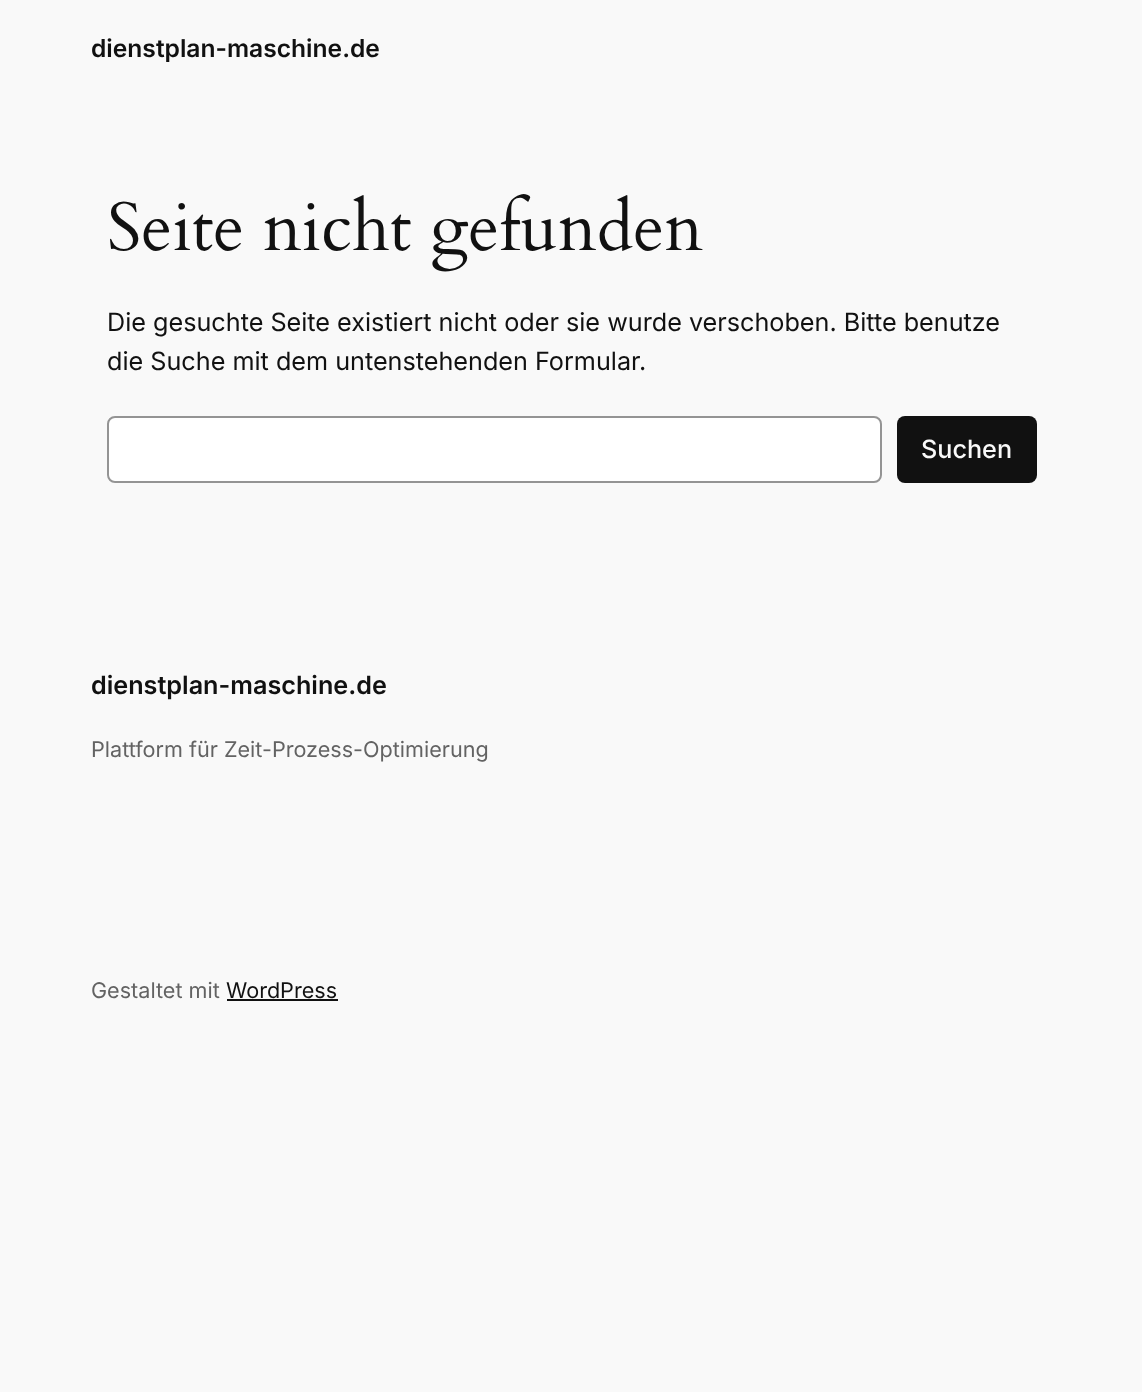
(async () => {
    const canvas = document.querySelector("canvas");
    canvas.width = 1142;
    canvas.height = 1392;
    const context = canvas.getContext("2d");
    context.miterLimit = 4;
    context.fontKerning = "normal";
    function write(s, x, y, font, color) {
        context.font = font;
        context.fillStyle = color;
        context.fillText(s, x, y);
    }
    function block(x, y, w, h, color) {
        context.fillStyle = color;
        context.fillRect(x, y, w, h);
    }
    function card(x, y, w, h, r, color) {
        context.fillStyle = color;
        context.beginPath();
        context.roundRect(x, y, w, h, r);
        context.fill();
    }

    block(0, 0, 1142, 1392, "rgb(249, 249, 249)");
    write("dienstplan-maschine.de", 91, 57, "600 24.6px Inter", "rgb(17, 17, 17)");
    write("Seite nicht gefunden", 107, 250, "68.5px Cardo", "rgb(17, 17, 17)");
    write("Die gesuchte Seite existiert nicht oder sie wurde verschoben. Bitte benutze", 107, 331, "25.2px Inter", "rgb(17, 17, 17)");
    write("die Suche mit dem untenstehenden Formular.", 107, 370, "25.2px Inter", "rgb(17, 17, 17)");
    context.fillStyle = "rgb(255, 255, 255)";
    context.beginPath();
    context.roundRect(108, 417, 773, 65, 7);
    context.fill();
    context.strokeStyle = "rgb(148, 148, 148)";
    context.lineWidth = 2;
    context.stroke();
    card(897, 416, 140, 67, 8, "rgb(17, 17, 17)");
    write("Suchen", 921, 458, "500 25.2px Inter", "rgb(249, 249, 249)");
    write("dienstplan-maschine.de", 91, 694, "600 25.2px Inter", "rgb(17, 17, 17)");
    write("Plattform für Zeit-Prozess-Optimierung", 91, 757, "21.6px Inter", "rgb(99, 99, 99)");
    write("Gestaltet mit", 91, 998, "21.6px Inter", "rgb(99, 99, 99)");
    write("WordPress", 226, 998, "21.6px Inter", "rgb(17, 17, 17)");
    block(227, 999, 111, 2, "rgb(17, 17, 17)");
})();
